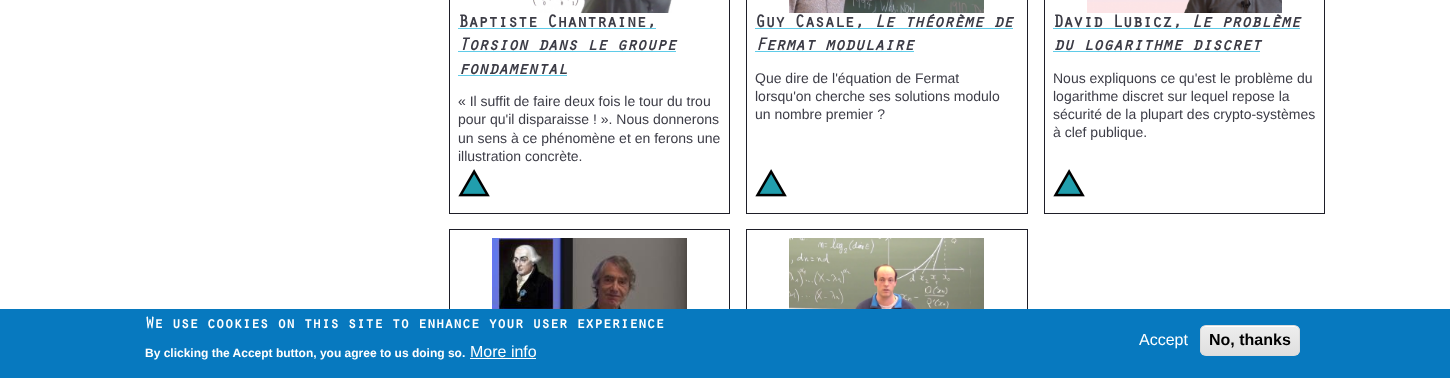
(async () => {
    const canvas = document.querySelector("canvas");
    canvas.width = 1450;
    canvas.height = 378;
    const context = canvas.getContext("2d");
    context.miterLimit = 4;
    context.fontKerning = "normal";
    function write(s, x, y, font, color) {
        context.font = font;
        context.fillStyle = color;
        context.fillText(s, x, y);
    }
    function block(x, y, w, h, color) {
        context.fillStyle = color;
        context.fillRect(x, y, w, h);
    }
    async function photo(src, x, y, w, h) {
        const img = new Image();
        img.src = src;
        await img.decode();
        context.drawImage(img, x, y, w, h);
    }
    let gradient;

    block(0, 0, 1450, 378, "rgb(255, 255, 255)");
    context.strokeStyle = "rgb(30, 30, 40)";
    context.strokeRect(449.5, -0.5, 280, 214);
    await photo("media/1.png", 533, 0, 139, 13);
    block(458, 28, 198, 1, "rgb(95, 203, 232)");
    context.letterSpacing = "-0.9px";
    write("Baptiste Chantraine,", 458, 27, "bold 18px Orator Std", "rgb(60, 60, 70)");
    write("Torsion dans le groupe", 458, 50, "italic bold 18px Orator Std", "rgb(60, 60, 70)");
    block(458, 51, 218, 1, "rgb(95, 203, 232)");
    write("fondamental", 458, 74, "italic bold 18px Orator Std", "rgb(60, 60, 70)");
    block(458, 75, 109, 1, "rgb(95, 203, 232)");
    context.letterSpacing = "0px";
    write("« Il suffit de faire deux fois le tour du trou", 458, 106, "14px Liberation Sans", "rgb(60, 60, 70)");
    write("pour qu'il disparaisse ! ». Nous donnerons", 458, 124, "14px Liberation Sans", "rgb(60, 60, 70)");
    write("un sens à ce phénomène et en ferons une", 458, 143, "14px Liberation Sans", "rgb(60, 60, 70)");
    write("illustration concrète.", 458, 161, "14px Liberation Sans", "rgb(60, 60, 70)");
    await photo("media/2.png", 458, 169, 32, 28);
    context.strokeRect(746.5, -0.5, 281, 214);
    await photo("media/3.png", 789, 0, 195, 13);
    block(755, 28, 258, 1, "rgb(95, 203, 232)");
    context.letterSpacing = "-0.9px";
    write("Guy Casale,", 755, 27, "bold 18px Orator Std", "rgb(60, 60, 70)");
    write("Le théorème de", 874, 27, "italic bold 18px Orator Std", "rgb(60, 60, 70)");
    write("Fermat modulaire", 755, 50, "italic bold 18px Orator Std", "rgb(60, 60, 70)");
    block(755, 51, 159, 1, "rgb(95, 203, 232)");
    context.letterSpacing = "0px";
    write("Que dire de l'équation de Fermat", 755, 83, "14px Liberation Sans", "rgb(60, 60, 70)");
    write("lorsqu'on cherche ses solutions modulo", 755, 101, "14px Liberation Sans", "rgb(60, 60, 70)");
    write("un nombre premier ?", 755, 119, "14px Liberation Sans", "rgb(60, 60, 70)");
    await photo("media/2.png", 755, 169, 32, 28);
    context.strokeRect(1044.5, -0.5, 280, 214);
    await photo("media/4.png", 1087, 0, 195, 13);
    block(1053, 28, 247, 1, "rgb(95, 203, 232)");
    context.letterSpacing = "-0.9px";
    write("David Lubicz,", 1053, 27, "bold 18px Orator Std", "rgb(60, 60, 70)");
    write("Le problème", 1191, 27, "italic bold 18px Orator Std", "rgb(60, 60, 70)");
    write("du logarithme discret", 1053, 50, "italic bold 18px Orator Std", "rgb(60, 60, 70)");
    block(1053, 51, 207, 1, "rgb(95, 203, 232)");
    context.letterSpacing = "0px";
    write("Nous expliquons ce qu'est le problème du", 1053, 83, "14px Liberation Sans", "rgb(60, 60, 70)");
    write("logarithme discret sur lequel repose la", 1053, 101, "14px Liberation Sans", "rgb(60, 60, 70)");
    write("sécurité de la plupart des crypto-systèmes", 1053, 119, "14px Liberation Sans", "rgb(60, 60, 70)");
    write("à clef publique.", 1053, 137, "14px Liberation Sans", "rgb(60, 60, 70)");
    await photo("media/2.png", 1053, 169, 32, 28);
    context.strokeRect(449.5, 229.5, 280, 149);
    await photo("media/5.png", 492, 238, 195, 71);
    context.strokeRect(746.5, 229.5, 281, 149);
    await photo("media/6.png", 789, 238, 195, 71);
    block(0, 309, 1450, 69, "rgb(7, 121, 191)");
    context.letterSpacing = "-0.8px";
    write("We use cookies on this site to enhance your user experience", 145, 328, "bold 16px Orator Std", "rgb(255, 255, 255)");
    context.letterSpacing = "0px";
    write("By clicking the Accept button, you agree to us doing so.", 145, 357, "bold 12px Liberation Sans", "rgb(255, 255, 255)");
    write("More info", 470, 357, "16px Liberation Sans", "rgb(255, 255, 255)");
    block(470, 358, 66, 1, "rgb(255, 255, 255)");
    write("Accept", 1139, 345, "16px Liberation Sans", "rgb(255, 255, 255)");
    context.save();
    context.beginPath();
    context.roundRect(1200, 325, 100, 31, 6);
    context.clip();
    gradient = context.createLinearGradient(1250, 326, 1250, 355);
    gradient.addColorStop(0.05, "rgb(237, 237, 237)");
    gradient.addColorStop(1, "rgb(223, 223, 223)");
    context.fillStyle = gradient;
    context.fillRect(1200, 326, 100, 29);
    context.restore();
    context.beginPath();
    context.moveTo(1206, 327);
    context.lineTo(1294, 327);
    context.bezierCurveTo(1297, 327, 1299, 329, 1299, 332);
    context.bezierCurveTo(1299, 322, 1285, 326, 1279, 326);
    context.lineTo(1221, 326);
    context.bezierCurveTo(1215, 326, 1201, 322, 1201, 332);
    context.bezierCurveTo(1201, 329, 1203, 327, 1206, 327);
    context.closePath();
    context.fill();
    context.beginPath();
    context.roundRect(1200.5, 325.5, 99, 30, 5.5);
    context.strokeStyle = "rgb(220, 220, 220)";
    context.stroke();
    write("No, thanks", 1209, 345, "bold 16px Liberation Sans", "rgb(0, 0, 0)");
})();
